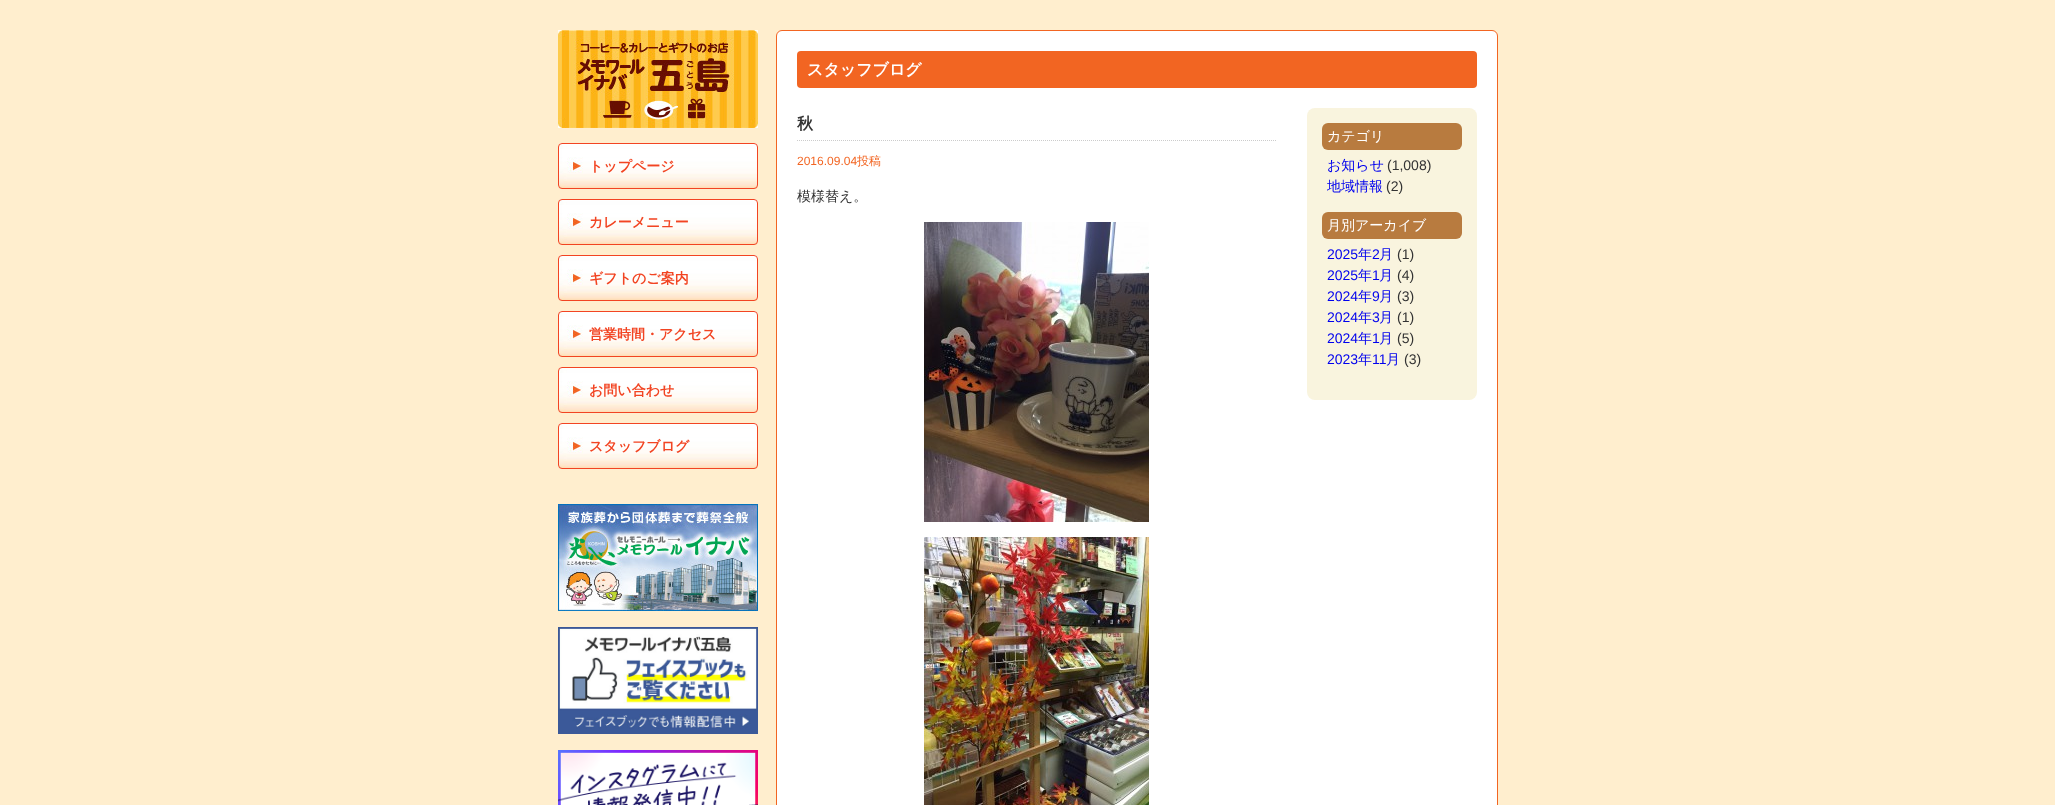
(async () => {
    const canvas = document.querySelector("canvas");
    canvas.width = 2055;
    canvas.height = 805;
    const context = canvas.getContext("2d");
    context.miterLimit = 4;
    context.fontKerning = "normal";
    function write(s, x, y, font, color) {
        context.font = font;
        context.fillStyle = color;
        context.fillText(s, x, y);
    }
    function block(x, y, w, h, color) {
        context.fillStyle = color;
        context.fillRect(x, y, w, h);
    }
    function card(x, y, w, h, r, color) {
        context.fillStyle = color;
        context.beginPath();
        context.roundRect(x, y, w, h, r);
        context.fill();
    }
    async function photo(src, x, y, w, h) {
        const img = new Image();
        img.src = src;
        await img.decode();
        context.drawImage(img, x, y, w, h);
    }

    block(0, 0, 2055, 805, "rgb(255, 238, 206)");
    await photo("media/1.png", 558, 30, 200, 98);
    await photo("media/2.png", 559, 143, 199, 46);
    context.beginPath();
    context.roundRect(558.5, 143.5, 199, 45, 3.5);
    context.strokeStyle = "rgb(242, 68, 34)";
    context.stroke();
    write("トップページ", 589, 171, "bold 14px WenQuanYi Zen Hei", "rgb(242, 68, 34)");
    await photo("media/2.png", 559, 199, 199, 46);
    context.beginPath();
    context.roundRect(558.5, 199.5, 199, 45, 3.5);
    context.stroke();
    write("カレーメニュー", 589, 227, "bold 14px WenQuanYi Zen Hei", "rgb(242, 68, 34)");
    await photo("media/2.png", 559, 255, 199, 46);
    context.beginPath();
    context.roundRect(558.5, 255.5, 199, 45, 3.5);
    context.stroke();
    write("ギフトのご案内", 589, 283, "bold 14px WenQuanYi Zen Hei", "rgb(242, 68, 34)");
    await photo("media/2.png", 559, 311, 199, 46);
    context.beginPath();
    context.roundRect(558.5, 311.5, 199, 45, 3.5);
    context.stroke();
    write("営業時間・アクセス", 589, 339, "bold 14px WenQuanYi Zen Hei", "rgb(242, 68, 34)");
    await photo("media/2.png", 559, 367, 199, 46);
    context.beginPath();
    context.roundRect(558.5, 367.5, 199, 45, 3.5);
    context.stroke();
    write("お問い合わせ", 589, 395, "bold 14px WenQuanYi Zen Hei", "rgb(242, 68, 34)");
    await photo("media/2.png", 559, 423, 199, 46);
    context.beginPath();
    context.roundRect(558.5, 423.5, 199, 45, 3.5);
    context.stroke();
    write("スタッフブログ", 589, 451, "bold 14px WenQuanYi Zen Hei", "rgb(242, 68, 34)");
    await photo("media/3.png", 558, 504, 200, 107);
    await photo("media/4.png", 558, 627, 200, 107);
    await photo("media/5.png", 558, 750, 200, 55);
    context.fillStyle = "rgb(255, 255, 255)";
    context.beginPath();
    context.roundRect(776.5, 30.5, 721, 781, 5.5);
    context.fill();
    context.strokeStyle = "rgb(242, 101, 34)";
    context.stroke();
    card(797, 51, 680, 37, 4, "rgb(242, 101, 34)");
    write("スタッフブログ", 807, 75, "bold 16px WenQuanYi Zen Hei", "rgb(255, 255, 255)");
    context.beginPath();
    context.moveTo(797, 140.5);
    context.lineTo(1277, 140.5);
    context.strokeStyle = "rgb(204, 204, 204)";
    context.setLineDash([1, 1]);
    context.stroke();
    write("秋", 797, 129, "bold 16px WenQuanYi Zen Hei", "rgb(51, 51, 51)");
    write("2016.09.04", 797, 165, "12px Liberation Sans", "rgb(242, 101, 34)");
    write("投稿", 857, 165, "500 12px WenQuanYi Zen Hei", "rgb(242, 101, 34)");
    write("模様替え。", 797, 201, "500 14px WenQuanYi Zen Hei", "rgb(51, 51, 51)");
    await photo("media/6.png", 924, 222, 225, 300);
    await photo("media/7.png", 924, 537, 225, 268);
    card(1307, 108, 170, 292, 8, "rgb(249, 244, 222)");
    card(1322, 123, 140, 27, 6, "rgb(184, 123, 63)");
    write("カテゴリ", 1327, 141, "500 14px WenQuanYi Zen Hei", "rgb(255, 255, 255)");
    write("お知らせ", 1327, 170, "500 14px WenQuanYi Zen Hei", "rgb(0, 0, 238)");
    write("(1,008)", 1387, 170, "14px Liberation Sans", "rgb(51, 51, 51)");
    write("地域情報", 1327, 191, "500 14px WenQuanYi Zen Hei", "rgb(0, 0, 238)");
    write("(2)", 1386, 191, "14px Liberation Sans", "rgb(51, 51, 51)");
    card(1322, 212, 140, 27, 6, "rgb(184, 123, 63)");
    write("月別アーカイブ", 1327, 230, "500 14px WenQuanYi Zen Hei", "rgb(255, 255, 255)");
    write("2025", 1327, 259, "14px Liberation Sans", "rgb(0, 0, 238)");
    write("年", 1358, 259, "500 14px WenQuanYi Zen Hei", "rgb(0, 0, 238)");
    write("2", 1372, 259, "14px Liberation Sans", "rgb(0, 0, 238)");
    write("月", 1379, 259, "500 14px WenQuanYi Zen Hei", "rgb(0, 0, 238)");
    write("(1)", 1397, 259, "14px Liberation Sans", "rgb(51, 51, 51)");
    write("2025", 1327, 280, "14px Liberation Sans", "rgb(0, 0, 238)");
    write("年", 1358, 280, "500 14px WenQuanYi Zen Hei", "rgb(0, 0, 238)");
    write("1", 1372, 280, "14px Liberation Sans", "rgb(0, 0, 238)");
    write("月", 1379, 280, "500 14px WenQuanYi Zen Hei", "rgb(0, 0, 238)");
    write("(4)", 1397, 280, "14px Liberation Sans", "rgb(51, 51, 51)");
    write("2024", 1327, 301, "14px Liberation Sans", "rgb(0, 0, 238)");
    write("年", 1358, 301, "500 14px WenQuanYi Zen Hei", "rgb(0, 0, 238)");
    write("9", 1372, 301, "14px Liberation Sans", "rgb(0, 0, 238)");
    write("月", 1379, 301, "500 14px WenQuanYi Zen Hei", "rgb(0, 0, 238)");
    write("(3)", 1397, 301, "14px Liberation Sans", "rgb(51, 51, 51)");
    write("2024", 1327, 322, "14px Liberation Sans", "rgb(0, 0, 238)");
    write("年", 1358, 322, "500 14px WenQuanYi Zen Hei", "rgb(0, 0, 238)");
    write("3", 1372, 322, "14px Liberation Sans", "rgb(0, 0, 238)");
    write("月", 1379, 322, "500 14px WenQuanYi Zen Hei", "rgb(0, 0, 238)");
    write("(1)", 1397, 322, "14px Liberation Sans", "rgb(51, 51, 51)");
    write("2024", 1327, 343, "14px Liberation Sans", "rgb(0, 0, 238)");
    write("年", 1358, 343, "500 14px WenQuanYi Zen Hei", "rgb(0, 0, 238)");
    write("1", 1372, 343, "14px Liberation Sans", "rgb(0, 0, 238)");
    write("月", 1379, 343, "500 14px WenQuanYi Zen Hei", "rgb(0, 0, 238)");
    write("(5)", 1397, 343, "14px Liberation Sans", "rgb(51, 51, 51)");
    write("2023", 1327, 364, "14px Liberation Sans", "rgb(0, 0, 238)");
    write("年", 1358, 364, "500 14px WenQuanYi Zen Hei", "rgb(0, 0, 238)");
    write("11", 1372, 364, "14px Liberation Sans", "rgb(0, 0, 238)");
    write("月", 1386, 364, "500 14px WenQuanYi Zen Hei", "rgb(0, 0, 238)");
    write("(3)", 1404, 364, "14px Liberation Sans", "rgb(51, 51, 51)");
})();
